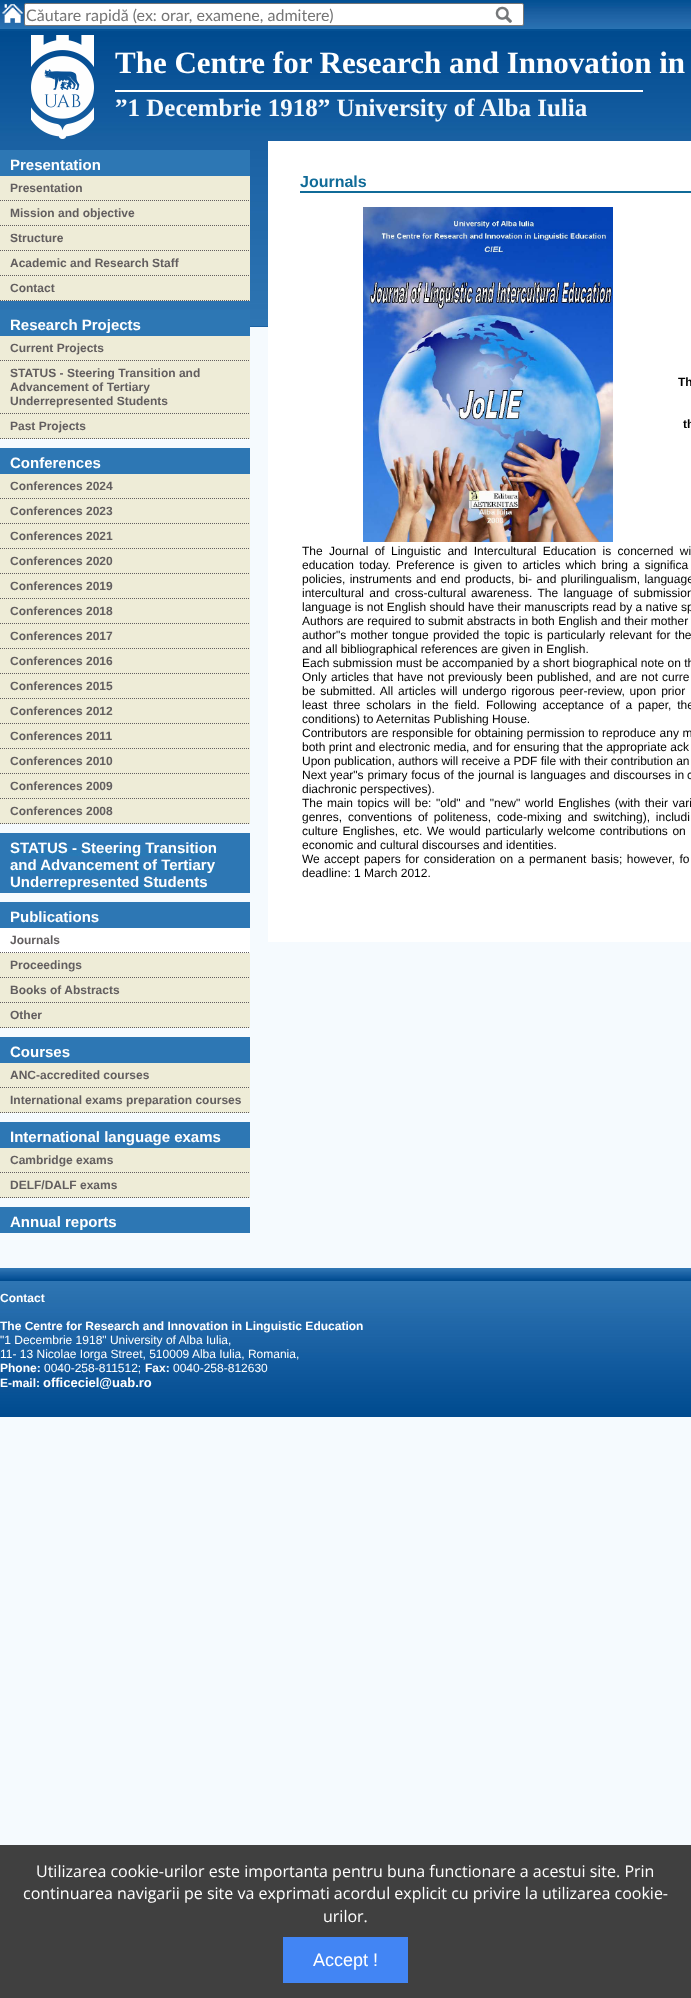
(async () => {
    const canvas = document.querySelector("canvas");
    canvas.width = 691;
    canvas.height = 1998;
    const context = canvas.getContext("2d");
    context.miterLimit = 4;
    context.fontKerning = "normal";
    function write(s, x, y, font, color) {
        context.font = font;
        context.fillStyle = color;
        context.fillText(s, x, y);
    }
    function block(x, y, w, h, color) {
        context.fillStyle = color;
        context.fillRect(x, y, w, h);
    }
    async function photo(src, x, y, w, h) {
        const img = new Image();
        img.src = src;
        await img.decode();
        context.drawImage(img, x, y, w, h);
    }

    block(0, 0, 691, 1998, "rgb(245, 250, 254)");
    await photo("media/1.png", 0, 0, 691, 31);
    await photo("media/2.png", 2, 4, 21, 19);
    context.fillStyle = "rgb(255, 255, 255)";
    context.beginPath();
    context.roundRect(24.5, 3.5, 499, 22, 1.5);
    context.fill();
    context.strokeStyle = "rgb(118, 118, 118)";
    context.stroke();
    write("Căutare rapidă (ex: orar, examene, admitere)", 26, 21, "16px Lato", "rgb(117, 117, 117)");
    await photo("media/3.png", 495, 6, 17, 17);
    await photo("media/4.png", 0, 31, 691, 110);
    await photo("media/5.png", 31, 35, 63, 104);
    write("The Centre for Research and Innovation in", 115, 73, "bold 31px Liberation Serif", "rgb(255, 255, 255)");
    block(115, 90, 528, 2, "rgb(255, 255, 255)");
    write("”1 Decembrie 1918” University of Alba Iulia", 115, 116, "bold 25px Liberation Serif", "rgb(245, 250, 254)");
    await photo("media/6.png", 0, 141, 268, 186);
    block(0, 150, 250, 26, "rgb(45, 119, 180)");
    write("Presentation", 10, 170, "bold 15px Liberation Sans", "rgb(255, 255, 255)");
    block(0, 176, 250, 125, "rgb(238, 236, 215)");
    context.beginPath();
    context.moveTo(0, 200.5);
    context.lineTo(250, 200.5);
    context.strokeStyle = "rgb(98, 94, 95)";
    context.setLineDash([1, 1]);
    context.stroke();
    write("Presentation", 10, 192, "bold 12px Liberation Sans", "rgb(98, 94, 95)");
    context.beginPath();
    context.moveTo(0, 225.5);
    context.lineTo(250, 225.5);
    context.stroke();
    write("Mission and objective", 10, 217, "bold 12px Liberation Sans", "rgb(98, 94, 95)");
    context.beginPath();
    context.moveTo(0, 250.5);
    context.lineTo(250, 250.5);
    context.stroke();
    write("Structure", 10, 242, "bold 12px Liberation Sans", "rgb(98, 94, 95)");
    context.beginPath();
    context.moveTo(0, 275.5);
    context.lineTo(250, 275.5);
    context.stroke();
    write("Academic and Research Staff", 10, 267, "bold 12px Liberation Sans", "rgb(98, 94, 95)");
    context.beginPath();
    context.moveTo(0, 300.5);
    context.lineTo(250, 300.5);
    context.stroke();
    write("Contact", 10, 292, "bold 12px Liberation Sans", "rgb(98, 94, 95)");
    block(0, 310, 250, 26, "rgb(45, 119, 180)");
    write("Research Projects", 10, 330, "bold 15px Liberation Sans", "rgb(255, 255, 255)");
    block(0, 336, 250, 103, "rgb(238, 236, 215)");
    context.beginPath();
    context.moveTo(0, 360.5);
    context.lineTo(250, 360.5);
    context.stroke();
    write("Current Projects", 10, 352, "bold 12px Liberation Sans", "rgb(98, 94, 95)");
    context.beginPath();
    context.moveTo(0, 413.5);
    context.lineTo(250, 413.5);
    context.stroke();
    write("STATUS - Steering Transition and", 10, 377, "bold 12px Liberation Sans", "rgb(98, 94, 95)");
    write("Advancement of Tertiary", 10, 391, "bold 12px Liberation Sans", "rgb(98, 94, 95)");
    write("Underrepresented Students", 10, 405, "bold 12px Liberation Sans", "rgb(98, 94, 95)");
    context.beginPath();
    context.moveTo(0, 438.5);
    context.lineTo(250, 438.5);
    context.stroke();
    write("Past Projects", 10, 430, "bold 12px Liberation Sans", "rgb(98, 94, 95)");
    block(0, 448, 250, 26, "rgb(45, 119, 180)");
    write("Conferences", 10, 468, "bold 15px Liberation Sans", "rgb(255, 255, 255)");
    block(0, 474, 250, 350, "rgb(238, 236, 215)");
    context.beginPath();
    context.moveTo(0, 498.5);
    context.lineTo(250, 498.5);
    context.stroke();
    write("Conferences 2024", 10, 490, "bold 12px Liberation Sans", "rgb(98, 94, 95)");
    context.beginPath();
    context.moveTo(0, 523.5);
    context.lineTo(250, 523.5);
    context.stroke();
    write("Conferences 2023", 10, 515, "bold 12px Liberation Sans", "rgb(98, 94, 95)");
    context.beginPath();
    context.moveTo(0, 548.5);
    context.lineTo(250, 548.5);
    context.stroke();
    write("Conferences 2021", 10, 540, "bold 12px Liberation Sans", "rgb(98, 94, 95)");
    context.beginPath();
    context.moveTo(0, 573.5);
    context.lineTo(250, 573.5);
    context.stroke();
    write("Conferences 2020", 10, 565, "bold 12px Liberation Sans", "rgb(98, 94, 95)");
    context.beginPath();
    context.moveTo(0, 598.5);
    context.lineTo(250, 598.5);
    context.stroke();
    write("Conferences 2019", 10, 590, "bold 12px Liberation Sans", "rgb(98, 94, 95)");
    context.beginPath();
    context.moveTo(0, 623.5);
    context.lineTo(250, 623.5);
    context.stroke();
    write("Conferences 2018", 10, 615, "bold 12px Liberation Sans", "rgb(98, 94, 95)");
    context.beginPath();
    context.moveTo(0, 648.5);
    context.lineTo(250, 648.5);
    context.stroke();
    write("Conferences 2017", 10, 640, "bold 12px Liberation Sans", "rgb(98, 94, 95)");
    context.beginPath();
    context.moveTo(0, 673.5);
    context.lineTo(250, 673.5);
    context.stroke();
    write("Conferences 2016", 10, 665, "bold 12px Liberation Sans", "rgb(98, 94, 95)");
    context.beginPath();
    context.moveTo(0, 698.5);
    context.lineTo(250, 698.5);
    context.stroke();
    write("Conferences 2015", 10, 690, "bold 12px Liberation Sans", "rgb(98, 94, 95)");
    context.beginPath();
    context.moveTo(0, 723.5);
    context.lineTo(250, 723.5);
    context.stroke();
    write("Conferences 2012", 10, 715, "bold 12px Liberation Sans", "rgb(98, 94, 95)");
    context.beginPath();
    context.moveTo(0, 748.5);
    context.lineTo(250, 748.5);
    context.stroke();
    write("Conferences 2011", 10, 740, "bold 12px Liberation Sans", "rgb(98, 94, 95)");
    context.beginPath();
    context.moveTo(0, 773.5);
    context.lineTo(250, 773.5);
    context.stroke();
    write("Conferences 2010", 10, 765, "bold 12px Liberation Sans", "rgb(98, 94, 95)");
    context.beginPath();
    context.moveTo(0, 798.5);
    context.lineTo(250, 798.5);
    context.stroke();
    write("Conferences 2009", 10, 790, "bold 12px Liberation Sans", "rgb(98, 94, 95)");
    context.beginPath();
    context.moveTo(0, 823.5);
    context.lineTo(250, 823.5);
    context.stroke();
    write("Conferences 2008", 10, 815, "bold 12px Liberation Sans", "rgb(98, 94, 95)");
    block(0, 833, 250, 60, "rgb(45, 119, 180)");
    await photo("media/7.png", 10, 849, 207, 41);
    write("STATUS - Steering Transition", 10, 853, "bold 15px Liberation Sans", "rgb(255, 255, 255)");
    write("and Advancement of Tertiary", 10, 870, "bold 15px Liberation Sans", "rgb(255, 255, 255)");
    write("Underrepresented Students", 10, 887, "bold 15px Liberation Sans", "rgb(255, 255, 255)");
    block(0, 902, 250, 26, "rgb(45, 119, 180)");
    write("Publications", 10, 922, "bold 15px Liberation Sans", "rgb(255, 255, 255)");
    block(0, 928, 250, 25, "rgb(255, 255, 255)");
    context.beginPath();
    context.moveTo(0, 952.5);
    context.lineTo(250, 952.5);
    context.stroke();
    write("Journals", 10, 944, "bold 12px Liberation Sans", "rgb(98, 94, 95)");
    block(0, 953, 250, 75, "rgb(238, 236, 215)");
    context.beginPath();
    context.moveTo(0, 977.5);
    context.lineTo(250, 977.5);
    context.stroke();
    write("Proceedings", 10, 969, "bold 12px Liberation Sans", "rgb(98, 94, 95)");
    context.beginPath();
    context.moveTo(0, 1002.5);
    context.lineTo(250, 1002.5);
    context.stroke();
    write("Books of Abstracts", 10, 994, "bold 12px Liberation Sans", "rgb(98, 94, 95)");
    context.beginPath();
    context.moveTo(0, 1027.5);
    context.lineTo(250, 1027.5);
    context.stroke();
    write("Other", 10, 1019, "bold 12px Liberation Sans", "rgb(98, 94, 95)");
    block(0, 1037, 250, 26, "rgb(45, 119, 180)");
    write("Courses", 10, 1057, "bold 15px Liberation Sans", "rgb(255, 255, 255)");
    block(0, 1063, 250, 50, "rgb(238, 236, 215)");
    context.beginPath();
    context.moveTo(0, 1087.5);
    context.lineTo(250, 1087.5);
    context.stroke();
    write("ANC-accredited courses", 10, 1079, "bold 12px Liberation Sans", "rgb(98, 94, 95)");
    context.beginPath();
    context.moveTo(0, 1112.5);
    context.lineTo(250, 1112.5);
    context.stroke();
    write("International exams preparation courses", 10, 1104, "bold 12px Liberation Sans", "rgb(98, 94, 95)");
    block(0, 1122, 250, 26, "rgb(45, 119, 180)");
    write("International language exams", 10, 1142, "bold 15px Liberation Sans", "rgb(255, 255, 255)");
    block(0, 1148, 250, 50, "rgb(238, 236, 215)");
    context.beginPath();
    context.moveTo(0, 1172.5);
    context.lineTo(250, 1172.5);
    context.stroke();
    write("Cambridge exams", 10, 1164, "bold 12px Liberation Sans", "rgb(98, 94, 95)");
    context.beginPath();
    context.moveTo(0, 1197.5);
    context.lineTo(250, 1197.5);
    context.stroke();
    write("DELF/DALF exams", 10, 1189, "bold 12px Liberation Sans", "rgb(98, 94, 95)");
    block(0, 1207, 250, 26, "rgb(45, 119, 180)");
    await photo("media/8.png", 10, 1223, 107, 7);
    write("Annual reports", 10, 1227, "bold 15px Liberation Sans", "rgb(255, 255, 255)");
    block(268, 141, 423, 801, "rgb(255, 255, 255)");
    block(300, 191, 391, 2, "rgb(16, 107, 152)");
    write("Journals", 300, 187, "bold 16px Liberation Sans", "rgb(16, 107, 152)");
    await photo("media/9.png", 363, 207, 250, 335);
    write("Th", 678, 386, "bold 12px Liberation Sans", "rgb(0, 0, 0)");
    write("th", 683, 428, "bold 12px Liberation Sans", "rgb(0, 0, 0)");
    write("The", 302, 555, "12px Liberation Sans", "rgb(0, 0, 0)");
    context.wordSpacing = "3px";
    write("Journal of Linguistic and Intercultural Education is concerned wi", 329, 555, "12px Liberation Sans", "rgb(0, 0, 0)");
    context.wordSpacing = "1.75px";
    write("education today.", 302, 569, "12px Liberation Sans", "rgb(0, 0, 0)");
    write("Preference is given to articles which bring a significa", 396, 569, "12px Liberation Sans", "rgb(0, 0, 0)");
    context.wordSpacing = "1px";
    write("policies, instruments and end", 302, 583, "12px Liberation Sans", "rgb(0, 0, 0)");
    write("products, bi- and plurilingualism, language", 465, 583, "12px Liberation Sans", "rgb(0, 0, 0)");
    context.wordSpacing = "2px";
    write("intercultural and cross-cultural", 302, 597, "12px Liberation Sans", "rgb(0, 0, 0)");
    write("awareness. The language of submission", 471, 597, "12px Liberation Sans", "rgb(0, 0, 0)");
    context.wordSpacing = "0px";
    write("language is not English should have their manuscripts read by a native sp", 302, 611, "12px Liberation Sans", "rgb(0, 0, 0)");
    write("Authors are required to submit abstracts in both English and their mother", 302, 625, "12px Liberation Sans", "rgb(0, 0, 0)");
    context.wordSpacing = "1px";
    write("author\"s mother", 302, 639, "12px Liberation Sans", "rgb(0, 0, 0)");
    write("tongue provided the topic is particularly relevant for the", 392, 639, "12px Liberation Sans", "rgb(0, 0, 0)");
    context.wordSpacing = "0px";
    write("and all bibliographical references are given in English.", 302, 653, "12px Liberation Sans", "rgb(0, 0, 0)");
    write("Each submission must be accompanied by a short biographical note on th", 302, 667, "12px Liberation Sans", "rgb(0, 0, 0)");
    write("Only", 302, 681, "12px Liberation Sans", "rgb(0, 0, 0)");
    context.wordSpacing = "0.75px";
    write("articles that have not previously been published, and are not curre", 331, 681, "12px Liberation Sans", "rgb(0, 0, 0)");
    context.wordSpacing = "1.5px";
    write("be submitted. All", 302, 695, "12px Liberation Sans", "rgb(0, 0, 0)");
    write("articles will undergo rigorous peer-review, upon prior", 398, 695, "12px Liberation Sans", "rgb(0, 0, 0)");
    context.wordSpacing = "2.5px";
    write("least three scholars in the field.", 302, 709, "12px Liberation Sans", "rgb(0, 0, 0)");
    write("Following acceptance of a paper, the", 486, 709, "12px Liberation Sans", "rgb(0, 0, 0)");
    context.wordSpacing = "0px";
    write("conditions) to Aeternitas Publishing House.", 302, 723, "12px Liberation Sans", "rgb(0, 0, 0)");
    write("Contributors", 302, 737, "12px Liberation Sans", "rgb(0, 0, 0)");
    context.wordSpacing = "0.25px";
    write("are responsible for obtaining permission to reproduce any m", 371, 737, "12px Liberation Sans", "rgb(0, 0, 0)");
    context.wordSpacing = "0px";
    write("both print and electronic media, and for ensuring that the appropriate ack", 302, 751, "12px Liberation Sans", "rgb(0, 0, 0)");
    write("Upon publication, authors will receive a PDF file with their contribution an", 302, 765, "12px Liberation Sans", "rgb(0, 0, 0)");
    write("Next", 302, 779, "12px Liberation Sans", "rgb(0, 0, 0)");
    context.wordSpacing = "0.5px";
    write("year\"s primary focus of the journal is languages and discourses in", 330, 779, "12px Liberation Sans", "rgb(0, 0, 0)");
    context.wordSpacing = "0px";
    write("c", 687, 779, "12px Liberation Sans", "rgb(0, 0, 0)");
    write("diachronic perspectives).", 302, 793, "12px Liberation Sans", "rgb(0, 0, 0)");
    write("The", 302, 807, "12px Liberation Sans", "rgb(0, 0, 0)");
    context.wordSpacing = "1.25px";
    write("main topics will be: \"old\" and \"new\" world Englishes (with their vari", 327, 807, "12px Liberation Sans", "rgb(0, 0, 0)");
    context.wordSpacing = "0px";
    write("genres,", 302, 821, "12px Liberation Sans", "rgb(0, 0, 0)");
    context.wordSpacing = "2.5px";
    write("conventions of politeness, code-mixing and switching), includi", 348, 821, "12px Liberation Sans", "rgb(0, 0, 0)");
    context.wordSpacing = "1.25px";
    write("culture Englishes,", 302, 835, "12px Liberation Sans", "rgb(0, 0, 0)");
    write("etc. We would particularly welcome contributions on", 403, 835, "12px Liberation Sans", "rgb(0, 0, 0)");
    context.wordSpacing = "0px";
    write("economic and cultural discourses and identities.", 302, 849, "12px Liberation Sans", "rgb(0, 0, 0)");
    write("We", 302, 863, "12px Liberation Sans", "rgb(0, 0, 0)");
    context.wordSpacing = "1.25px";
    write("accept papers for consideration on a permanent basis; however, fo", 324, 863, "12px Liberation Sans", "rgb(0, 0, 0)");
    context.wordSpacing = "0px";
    write("deadline: 1 March 2012.", 302, 877, "12px Liberation Sans", "rgb(0, 0, 0)");
    await photo("media/10.png", 0, 1268, 691, 13);
    await photo("media/11.png", 0, 1281, 691, 136);
    write("Contact", 0, 1302, "bold 12px Liberation Sans", "rgb(255, 255, 255)");
    write("The Centre for Research and Innovation in Linguistic Education", 0, 1330, "bold 12px Liberation Sans", "rgb(255, 255, 255)");
    write("\"1 Decembrie 1918\" University of Alba Iulia,", 0, 1344, "12px Liberation Sans", "rgb(255, 255, 255)");
    write("11- 13 Nicolae Iorga Street, 510009 Alba Iulia, Romania,", 0, 1358, "12px Liberation Sans", "rgb(255, 255, 255)");
    write("Phone:", 0, 1372, "bold 12px Liberation Sans", "rgb(255, 255, 255)");
    write("0040-258-811512;", 44, 1372, "12px Liberation Sans", "rgb(255, 255, 255)");
    write("Fax:", 145, 1372, "bold 12px Liberation Sans", "rgb(255, 255, 255)");
    write("0040-258-812630", 173, 1372, "12px Liberation Sans", "rgb(255, 255, 255)");
    write("E-mail:", 0, 1387, "bold 12px Liberation Sans", "rgb(255, 255, 255)");
    write("officeciel@uab.ro", 43, 1387, "bold 13px Liberation Sans", "rgb(255, 255, 255)");
    block(0, 1845, 691, 153, "rgb(64, 64, 64)");
    write("Utilizarea cookie-urilor este importanta pentru buna functionare a acestui site. Prin", 36, 1877, "16px Open Sans", "rgb(255, 255, 255)");
    write("continuarea navigarii pe site va exprimati acordul explicit cu privire la utilizarea cookie-", 23, 1899, "16px Open Sans", "rgb(255, 255, 255)");
    write("urilor.", 323, 1922, "16px Open Sans", "rgb(255, 255, 255)");
    block(283, 1937, 125, 46, "rgb(66, 133, 244)");
    write("Accept !", 313, 1966, "18px Liberation Sans", "rgb(255, 255, 255)");
})();
